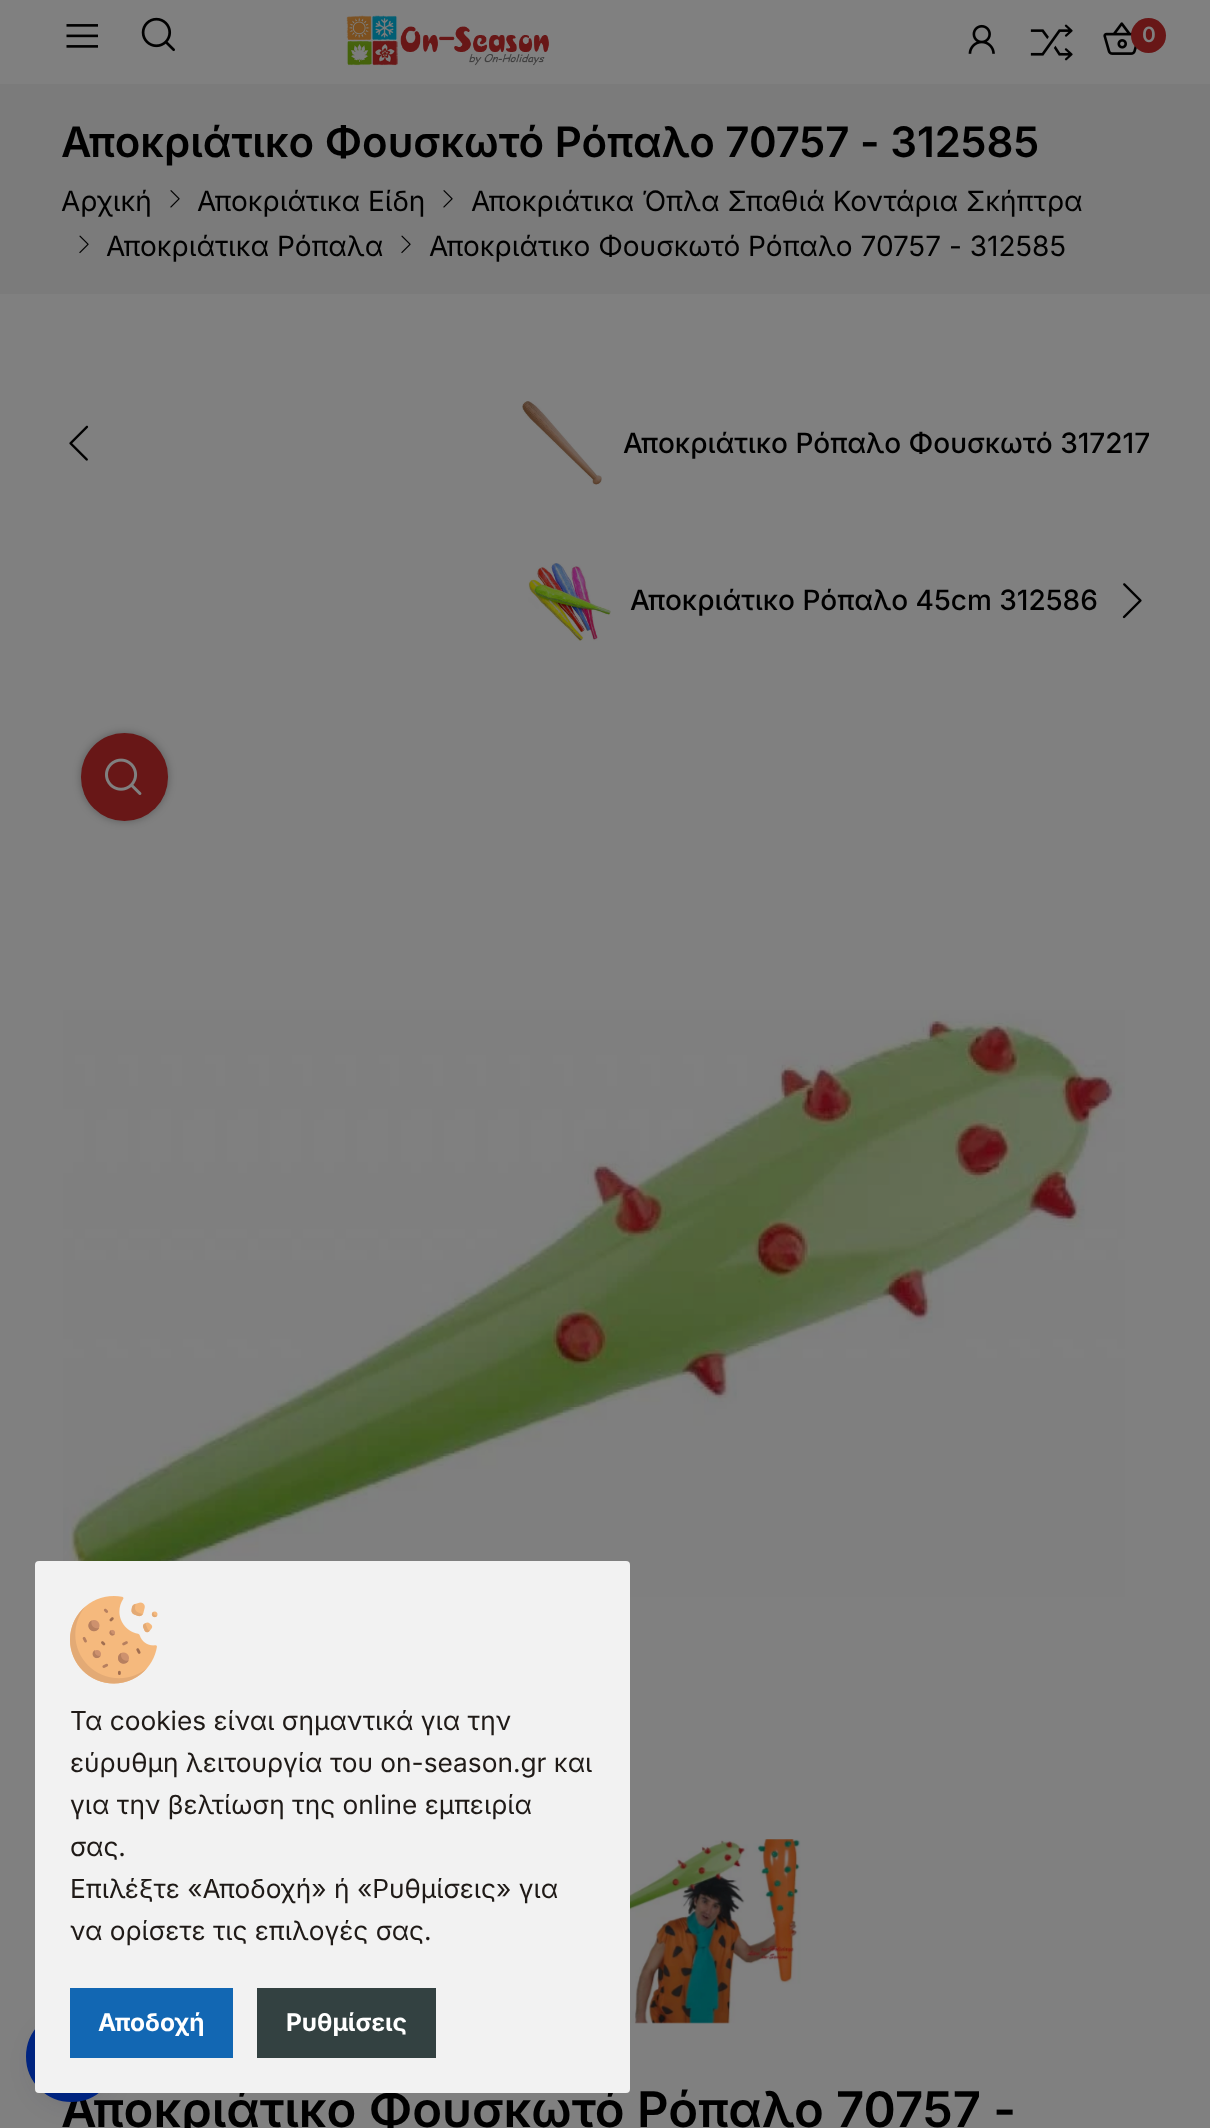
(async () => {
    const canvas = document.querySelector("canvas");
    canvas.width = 1210;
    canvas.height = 2128;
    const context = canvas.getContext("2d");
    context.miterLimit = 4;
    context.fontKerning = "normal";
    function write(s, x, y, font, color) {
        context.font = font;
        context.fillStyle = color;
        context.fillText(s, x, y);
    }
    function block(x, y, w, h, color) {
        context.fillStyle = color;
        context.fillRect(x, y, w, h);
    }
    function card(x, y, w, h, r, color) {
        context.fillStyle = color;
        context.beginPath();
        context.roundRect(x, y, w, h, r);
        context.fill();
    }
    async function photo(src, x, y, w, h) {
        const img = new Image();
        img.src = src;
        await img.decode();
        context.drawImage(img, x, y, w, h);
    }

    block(0, 0, 1210, 2128, "rgb(128, 128, 128)");
    await photo("media/1.png", 66, 24, 32, 24);
    await photo("media/2.png", 141, 17, 34, 35);
    await photo("media/3.png", 346, 15, 203, 51);
    await photo("media/4.png", 968, 24, 27, 30);
    await photo("media/5.png", 1030, 24, 43, 37);
    await photo("media/6.png", 1103, 22, 34, 33);
    context.fillStyle = "rgb(104, 23, 23)";
    context.beginPath();
    context.arc(1148.5, 35.5, 17.5, 0, Math.PI * 2);
    context.fill();
    write("0", 1142, 42, "600 21px Inter", "rgb(128, 128, 128)");
    block(0, 84, 1210, 210, "rgb(123, 123, 123)");
    write("Αποκριάτικο Φουσκωτό Ρόπαλο 70757 - 312585", 61, 157, "600 42px Inter", "rgb(0, 0, 0)");
    write("Αρχική", 61, 211, "28px Inter", "rgb(0, 0, 0)");
    await photo("media/7.png", 170, 190, 10, 18);
    write("Αποκριάτικα Είδη", 197, 211, "28px Inter", "rgb(0, 0, 0)");
    await photo("media/7.png", 443, 190, 10, 18);
    write("Αποκριάτικα Όπλα Σπαθιά Κοντάρια Σκήπτρα", 471, 211, "28px Inter", "rgb(0, 0, 0)");
    await photo("media/8.png", 79, 235, 10, 19);
    write("Αποκριάτικα Ρόπαλα", 106, 256, "28px Inter", "rgb(0, 0, 0)");
    await photo("media/8.png", 401, 235, 10, 19);
    write("Αποκριάτικο Φουσκωτό Ρόπαλο 70757 - 312585", 429, 256, "28px Inter", "rgb(0, 0, 0)");
    await photo("media/9.png", 69, 425, 20, 36);
    await photo("media/10.png", 522, 401, 80, 84);
    write("Αποκριάτικο Ρόπαλο Φουσκωτό 317217", 623, 453, "500 28px Inter", "rgb(0, 0, 0)");
    await photo("media/11.png", 528, 563, 83, 78);
    write("Αποκριάτικο Ρόπαλο 45cm 312586", 630, 610, "500 28px Inter", "rgb(0, 0, 0)");
    await photo("media/12.png", 1122, 583, 20, 36);
    context.fillStyle = "rgba(0, 0, 0, 0.3)";
    context.filter = "blur(4.5px)";
    context.beginPath();
    context.roundRect(81, 733, 87, 88, 43.5);
    context.fill();
    context.filter = "none";
    card(81, 733, 87, 88, 43.5, "rgb(104, 23, 23)");
    await photo("media/13.png", 105, 758, 37, 37);
    await photo("media/14.png", 63, 1010, 1062, 587);
    await photo("media/15.png", 630, 1839, 171, 185);
    write("Αποκριάτικο Φουσκωτό Ρόπαλο 70757 -", 61, 2127, "600 49px Inter", "rgb(0, 0, 0)");
    context.fillStyle = "rgba(19, 22, 49, 0.15)";
    context.filter = "blur(13px)";
    context.beginPath();
    context.roundRect(35, 2028, 74, 74, 37);
    context.fill();
    context.filter = "none";
    context.beginPath();
    context.arc(71.5, 2056.5, 41, 0, Math.PI * 2);
    context.strokeStyle = "rgb(0, 36, 128)";
    context.lineWidth = 9;
    context.stroke();
    card(35, 1561, 595, 532, 4, "rgb(242, 242, 242)");
    await photo("media/16.png", 70, 1596, 88, 88);
    write("Τα cookies είναι σημαντικά για την", 70, 1730, "26.25px Inter", "rgb(31, 26, 23)");
    write("εύρυθμη λειτουργία του on-season.gr και", 70, 1772, "26.25px Inter", "rgb(31, 26, 23)");
    write("για την βελτίωση της online εμπειρία", 70, 1814, "26.25px Inter", "rgb(31, 26, 23)");
    write("σας.", 70, 1856, "26.25px Inter", "rgb(31, 26, 23)");
    write("Επιλέξτε «Αποδοχή» ή «Ρυθμίσεις» για", 70, 1898, "26.25px Inter", "rgb(31, 26, 23)");
    write("να ορίσετε τις επιλογές σας.", 70, 1940, "26.25px Inter", "rgb(31, 26, 23)");
    block(70, 1988, 163, 70, "rgb(18, 103, 179)");
    write("Αποδοχή", 98, 2031, "bold 24.5px Inter", "rgb(255, 255, 255)");
    block(257, 1988, 179, 70, "rgb(51, 65, 65)");
    write("Ρυθμίσεις", 286, 2031, "bold 24.5px Inter", "rgb(255, 255, 255)");
})();
